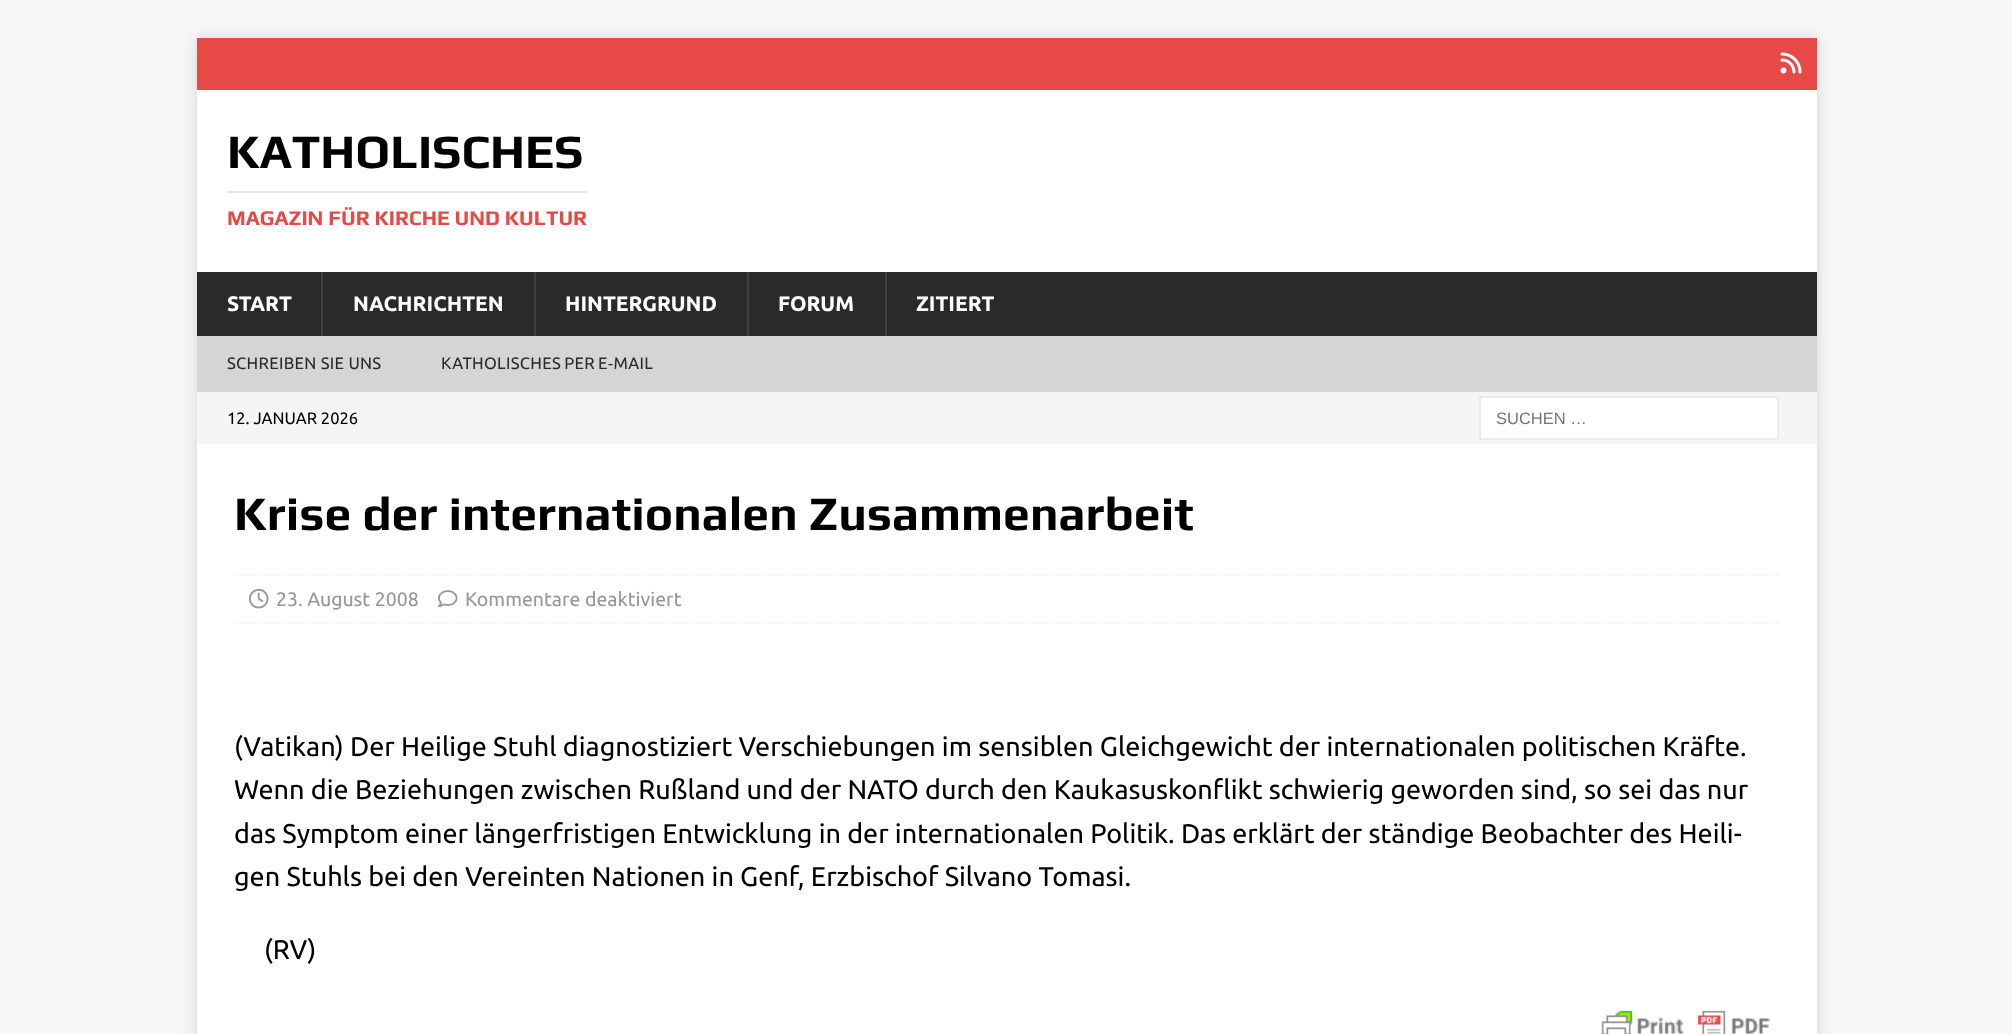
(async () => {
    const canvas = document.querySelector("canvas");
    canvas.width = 2012;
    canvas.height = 1034;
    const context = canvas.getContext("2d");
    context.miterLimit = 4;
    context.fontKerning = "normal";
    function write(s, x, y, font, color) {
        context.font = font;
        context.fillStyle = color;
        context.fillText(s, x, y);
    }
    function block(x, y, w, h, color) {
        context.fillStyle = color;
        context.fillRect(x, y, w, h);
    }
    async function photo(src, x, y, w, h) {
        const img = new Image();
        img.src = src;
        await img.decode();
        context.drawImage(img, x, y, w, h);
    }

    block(0, 0, 2012, 1034, "rgb(247, 247, 247)");
    context.fillStyle = "rgba(50, 50, 50, 0.17)";
    context.filter = "blur(7.5px)";
    context.beginPath();
    context.rect(197, 38, 1620, 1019);
    context.fill();
    context.filter = "none";
    block(197, 38, 1620, 52, "rgb(230, 73, 70)");
    await photo("media/1.png", 1780, 52, 22, 22);
    block(197, 90, 1620, 182, "rgb(255, 255, 255)");
    write("KATHOLISCHES", 227, 168, "bold 48px Play", "rgb(0, 0, 0)");
    block(227, 191, 360, 2, "rgb(229, 229, 229)");
    write("MAGAZIN FÜR KIRCHE UND KULTUR", 227, 225, "bold 21px Play", "rgb(230, 73, 70)");
    block(197, 272, 1620, 64, "rgb(42, 42, 42)");
    write("START", 227, 311, "bold 21px Ubuntu", "rgb(255, 255, 255)");
    block(321, 272, 2, 64, "rgb(63, 63, 63)");
    write("NACHRICHTEN", 353, 311, "bold 21px Ubuntu", "rgb(255, 255, 255)");
    block(534, 272, 2, 64, "rgb(63, 63, 63)");
    write("HINTERGRUND", 565, 311, "bold 21px Ubuntu", "rgb(255, 255, 255)");
    block(747, 272, 2, 64, "rgb(63, 63, 63)");
    write("FORUM", 778, 311, "bold 21px Ubuntu", "rgb(255, 255, 255)");
    block(885, 272, 2, 64, "rgb(63, 63, 63)");
    write("ZITIERT", 916, 311, "bold 21px Ubuntu", "rgb(255, 255, 255)");
    block(197, 336, 1620, 56, "rgb(213, 213, 213)");
    context.letterSpacing = "0.3px";
    write("SCHREIBEN SIE UNS", 227, 369, "16.5px Ubuntu", "rgb(42, 42, 42)");
    context.wordSpacing = "-1px";
    write("KATHOLISCHES PER E‑MAIL", 441, 369, "16.5px Ubuntu", "rgb(42, 42, 42)");
    block(197, 392, 1620, 52, "rgb(245, 245, 245)");
    context.letterSpacing = "0px";
    context.wordSpacing = "0px";
    write("12. JANUAR 2026", 227, 424, "16.5px Ubuntu", "rgb(0, 0, 0)");
    context.fillStyle = "rgb(255, 255, 255)";
    context.beginPath();
    context.rect(1480, 397, 298, 42);
    context.fill();
    context.strokeStyle = "rgb(235, 235, 235)";
    context.lineWidth = 2;
    context.stroke();
    write("SUCHEN …", 1496, 424, "16.5px Liberation Sans", "rgb(117, 117, 117)");
    block(197, 444, 1620, 590, "rgb(255, 255, 255)");
    write("Krise der internationalen Zusammenarbeit", 234, 530, "bold 48px Play", "rgb(0, 0, 0)");
    context.beginPath();
    context.moveTo(234, 575);
    context.lineTo(1779, 575);
    context.lineWidth = 1.5;
    context.setLineDash([1.5, 1.5]);
    context.stroke();
    context.beginPath();
    context.moveTo(234, 623);
    context.lineTo(1779, 623);
    context.stroke();
    await photo("media/2.png", 249, 588, 20, 21);
    write("23. August 2008", 276, 606, "19.5px Ubuntu", "rgb(151, 151, 151)");
    await photo("media/3.png", 438, 590, 20, 18);
    write("Kommentare deaktiviert", 465, 606, "19.5px Ubuntu", "rgb(151, 151, 151)");
    write("(Vatikan) Der Heilige Stuhl diagnostiziert Verschiebungen im sensiblen Gleichgewicht der internationalen politischen Kräfte.", 234, 756, "27px Ubuntu", "rgb(0, 0, 0)");
    write("Wenn die Beziehungen zwischen Rußland und der NATO durch den Kaukasuskonflikt schwierig geworden sind, so sei das nur", 234, 799, "27px Ubuntu", "rgb(0, 0, 0)");
    write("das Symptom einer längerfristigen Entwicklung in der internationalen Politik. Das erklärt der ständige Beobachter des Heili-", 234, 843, "27px Ubuntu", "rgb(0, 0, 0)");
    write("gen Stuhls bei den Vereinten Nationen in Genf, Erzbischof Silvano Tomasi.", 234, 886, "27px Ubuntu", "rgb(0, 0, 0)");
    write("(RV)", 264, 959, "27px Ubuntu", "rgb(0, 0, 0)");
    await photo("media/4.png", 1601, 1010, 170, 24);
})();
